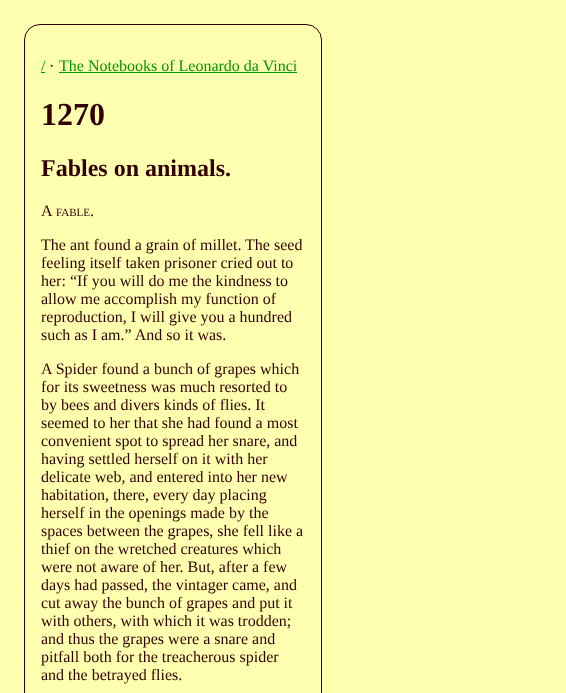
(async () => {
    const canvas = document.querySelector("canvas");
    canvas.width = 566;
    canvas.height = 693;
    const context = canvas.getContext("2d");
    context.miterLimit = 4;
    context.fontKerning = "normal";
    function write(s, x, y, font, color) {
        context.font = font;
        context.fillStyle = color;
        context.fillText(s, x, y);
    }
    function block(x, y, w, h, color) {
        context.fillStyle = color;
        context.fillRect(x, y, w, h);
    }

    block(0, 0, 566, 693, "rgb(255, 255, 176)");
    context.beginPath();
    context.roundRect(24.5, 24.5, 297, 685, 15.5);
    context.strokeStyle = "rgb(51, 0, 0)";
    context.stroke();
    write("/", 41, 71, "16px Liberation Serif", "rgb(0, 153, 0)");
    block(41, 72, 4, 1, "rgb(0, 153, 0)");
    write("·", 49, 71, "16px Liberation Serif", "rgb(51, 0, 0)");
    write("The Notebooks of Leonardo da Vinci", 59, 71, "16px Liberation Serif", "rgb(0, 153, 0)");
    block(59, 72, 238, 1, "rgb(0, 153, 0)");
    write("1270", 41, 125, "bold 32px Liberation Serif", "rgb(51, 0, 0)");
    write("Fables on animals.", 41, 176, "bold 24px Liberation Serif", "rgb(51, 0, 0)");
    write("A", 41, 216, "16px Liberation Serif", "rgb(51, 0, 0)");
    write("FABLE", 56, 216, "11px Liberation Serif", "rgb(51, 0, 0)");
    write(".", 90, 216, "16px Liberation Serif", "rgb(51, 0, 0)");
    write("The ant found a grain of millet. The seed", 41, 250, "16px Liberation Serif", "rgb(51, 0, 0)");
    write("feeling itself taken prisoner cried out to", 41, 268, "16px Liberation Serif", "rgb(51, 0, 0)");
    write("her: “If you will do me the kindness to", 41, 286, "16px Liberation Serif", "rgb(51, 0, 0)");
    write("allow me accomplish my function of", 41, 304, "16px Liberation Serif", "rgb(51, 0, 0)");
    write("reproduction, I will give you a hundred", 41, 322, "16px Liberation Serif", "rgb(51, 0, 0)");
    write("such as I am.” And so it was.", 41, 340, "16px Liberation Serif", "rgb(51, 0, 0)");
    write("A Spider found a bunch of grapes which", 41, 374, "16px Liberation Serif", "rgb(51, 0, 0)");
    write("for its sweetness was much resorted to", 41, 392, "16px Liberation Serif", "rgb(51, 0, 0)");
    write("by bees and divers kinds of flies. It", 41, 410, "16px Liberation Serif", "rgb(51, 0, 0)");
    write("seemed to her that she had found a most", 41, 428, "16px Liberation Serif", "rgb(51, 0, 0)");
    write("convenient spot to spread her snare, and", 41, 446, "16px Liberation Serif", "rgb(51, 0, 0)");
    write("having settled herself on it with her", 41, 464, "16px Liberation Serif", "rgb(51, 0, 0)");
    write("delicate web, and entered into her new", 41, 482, "16px Liberation Serif", "rgb(51, 0, 0)");
    write("habitation, there, every day placing", 41, 500, "16px Liberation Serif", "rgb(51, 0, 0)");
    write("herself in the openings made by the", 41, 518, "16px Liberation Serif", "rgb(51, 0, 0)");
    write("spaces between the grapes, she fell like a", 41, 536, "16px Liberation Serif", "rgb(51, 0, 0)");
    write("thief on the wretched creatures which", 41, 554, "16px Liberation Serif", "rgb(51, 0, 0)");
    write("were not aware of her. But, after a few", 41, 572, "16px Liberation Serif", "rgb(51, 0, 0)");
    write("days had passed, the vintager came, and", 41, 590, "16px Liberation Serif", "rgb(51, 0, 0)");
    write("cut away the bunch of grapes and put it", 41, 608, "16px Liberation Serif", "rgb(51, 0, 0)");
    write("with others, with which it was trodden;", 41, 626, "16px Liberation Serif", "rgb(51, 0, 0)");
    write("and thus the grapes were a snare and", 41, 644, "16px Liberation Serif", "rgb(51, 0, 0)");
    write("pitfall both for the treacherous spider", 41, 662, "16px Liberation Serif", "rgb(51, 0, 0)");
    write("and the betrayed flies.", 41, 680, "16px Liberation Serif", "rgb(51, 0, 0)");
})();
